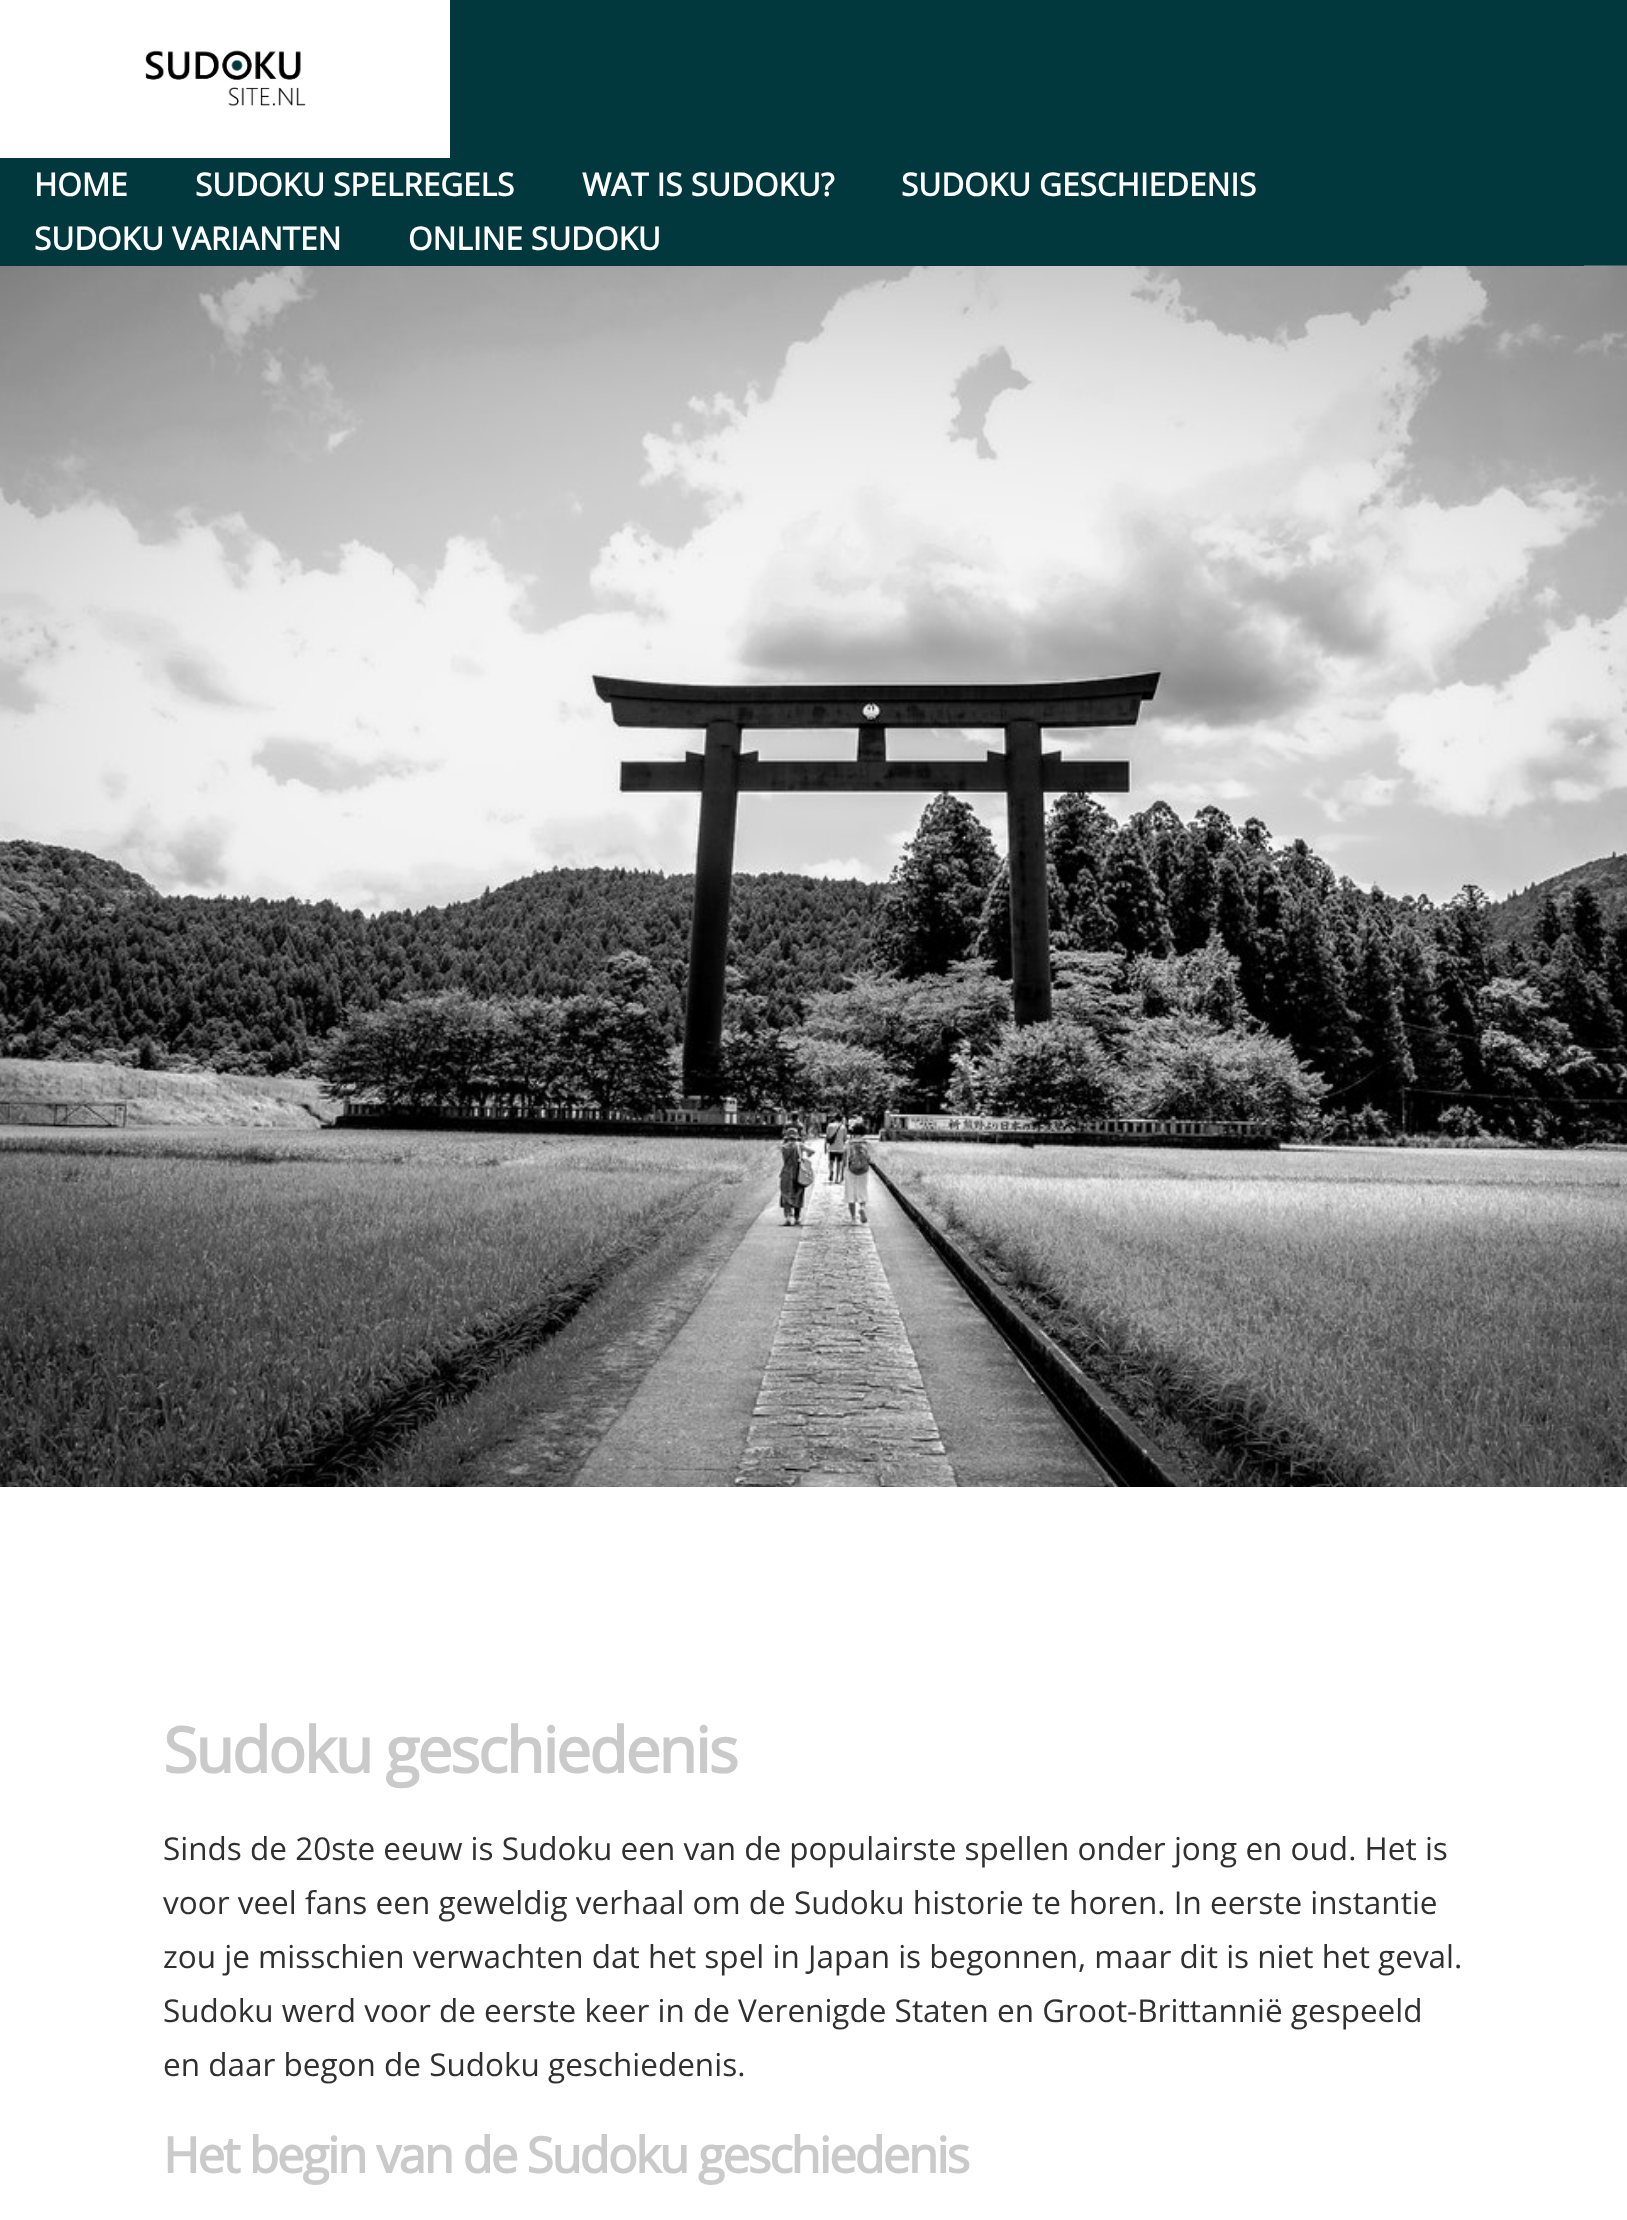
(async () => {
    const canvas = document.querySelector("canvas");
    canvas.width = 1627;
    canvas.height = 2220;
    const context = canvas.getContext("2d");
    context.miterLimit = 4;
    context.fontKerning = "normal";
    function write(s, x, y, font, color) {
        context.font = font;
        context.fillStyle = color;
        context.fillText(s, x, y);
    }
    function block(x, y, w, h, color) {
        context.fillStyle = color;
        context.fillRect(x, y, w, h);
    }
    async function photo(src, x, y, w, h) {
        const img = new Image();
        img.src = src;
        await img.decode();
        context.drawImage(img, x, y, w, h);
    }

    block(0, 0, 1627, 2220, "rgb(0, 56, 61)");
    block(0, 0, 450, 158, "rgb(255, 255, 255)");
    await photo("media/1.png", 145, 50, 161, 57);
    await photo("media/2.png", 0, 265, 1627, 1222);
    block(0, 265, 1584, 1, "rgb(0, 56, 61)");
    write("HOME", 34, 196, "bold 31.5px Open Sans", "rgb(255, 255, 255)");
    write("SUDOKU SPELREGELS", 195, 196, "bold 31.5px Open Sans", "rgb(255, 255, 255)");
    write("WAT IS SUDOKU?", 582, 196, "bold 31.5px Open Sans", "rgb(255, 255, 255)");
    write("SUDOKU GESCHIEDENIS", 901, 196, "bold 31.5px Open Sans", "rgb(255, 255, 255)");
    write("SUDOKU VARIANTEN", 34, 250, "bold 31.5px Open Sans", "rgb(255, 255, 255)");
    write("ONLINE SUDOKU", 408, 250, "bold 31.5px Open Sans", "rgb(255, 255, 255)");
    block(0, 1487, 1627, 733, "rgb(255, 255, 255)");
    context.letterSpacing = "-2.25px";
    write("Sudoku geschiedenis", 163, 1773, "bold 63px Open Sans", "rgb(202, 202, 202)");
    context.letterSpacing = "0px";
    write("Sinds de 20ste eeuw is Sudoku een van de populairste spellen onder jong en oud. Het is", 163, 1860, "31.5px Open Sans", "rgb(48, 48, 48)");
    write("voor veel fans een geweldig verhaal om de Sudoku historie te horen. In eerste instantie", 163, 1914, "31.5px Open Sans", "rgb(48, 48, 48)");
    write("zou je misschien verwachten dat het spel in Japan is begonnen, maar dit is niet het geval.", 163, 1968, "31.5px Open Sans", "rgb(48, 48, 48)");
    write("Sudoku werd voor de eerste keer in de Verenigde Staten en Groot-Brittannië gespeeld", 163, 2022, "31.5px Open Sans", "rgb(48, 48, 48)");
    write("en daar begon de Sudoku geschiedenis.", 163, 2076, "31.5px Open Sans", "rgb(48, 48, 48)");
    context.letterSpacing = "-2.25px";
    write("Het begin van de Sudoku geschiedenis", 163, 2173, "bold 49.5px Open Sans", "rgb(202, 202, 202)");
})();
